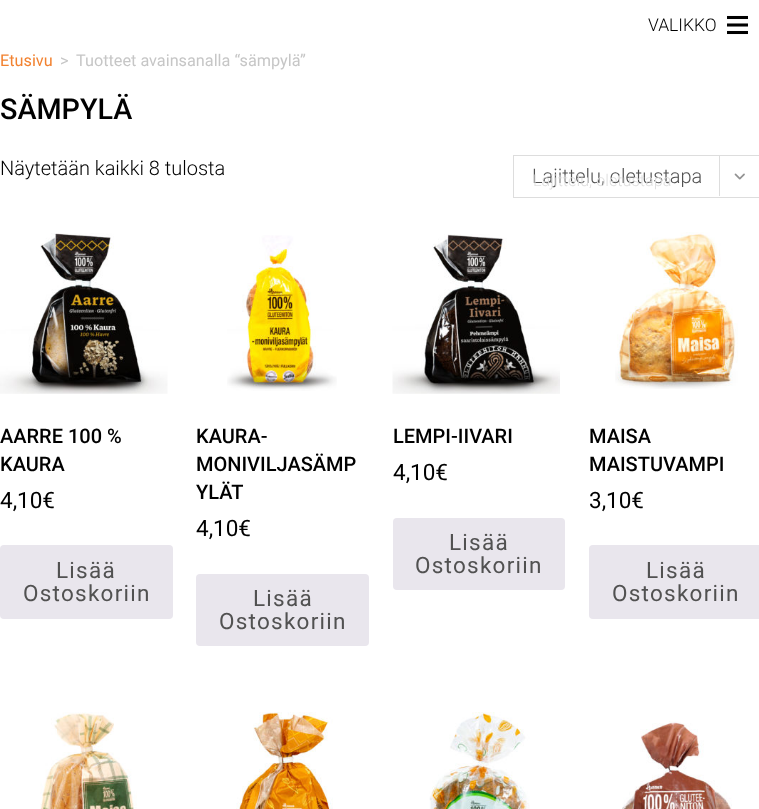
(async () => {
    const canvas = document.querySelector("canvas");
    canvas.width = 759;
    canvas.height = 809;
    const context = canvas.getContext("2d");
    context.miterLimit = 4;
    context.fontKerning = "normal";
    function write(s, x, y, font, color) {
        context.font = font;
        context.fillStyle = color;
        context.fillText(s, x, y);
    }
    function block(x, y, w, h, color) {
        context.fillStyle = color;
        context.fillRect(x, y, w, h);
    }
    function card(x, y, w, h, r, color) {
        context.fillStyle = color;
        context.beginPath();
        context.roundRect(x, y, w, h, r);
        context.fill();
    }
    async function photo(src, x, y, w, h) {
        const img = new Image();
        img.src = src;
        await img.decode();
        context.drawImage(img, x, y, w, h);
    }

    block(0, 0, 759, 809, "rgb(255, 255, 255)");
    write("VALIKKO", 648, 31, "300 17.5px Roboto", "rgb(0, 0, 0)");
    await photo("media/1.png", 727, 15, 21, 20);
    write("Etusivu", 0, 66, "16.25px Roboto", "rgb(242, 130, 48)");
    write(">", 60, 66, "16.25px Roboto", "rgb(198, 198, 198)");
    write("Tuotteet avainsanalla “sämpylä”", 76, 66, "16.25px Roboto", "rgb(198, 198, 198)");
    write("SÄMPYLÄ", 0, 119, "500 28.75px Roboto", "rgb(0, 0, 0)");
    write("Näytetään kaikki 8 tulosta", 0, 175, "300 20px Roboto", "rgb(0, 0, 0)");
    context.strokeStyle = "rgb(221, 221, 221)";
    context.strokeRect(513.5, 155.5, 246, 42);
    write("Lajittelu, oletustapa", 532, 183, "300 20px Roboto", "rgb(81, 81, 81)");
    block(719, 156, 1, 40, "rgb(221, 221, 221)");
    await photo("media/2.png", 734, 173, 11, 7);
    write("Lajittelu, oletustapa", 533, 186, "300 16.25px Roboto", "rgb(223, 223, 223)");
    await photo("media/3.png", 0, 233, 168, 161);
    write("AARRE 100 %", 0, 443, "500 20px Roboto", "rgb(0, 0, 0)");
    write("KAURA", 0, 471, "500 20px Roboto", "rgb(0, 0, 0)");
    write("4,10€", 0, 508, "22.5px Roboto", "rgb(0, 0, 0)");
    card(0, 545, 173, 74, 4, "rgb(233, 230, 237)");
    context.letterSpacing = "1.25px";
    write("Lisää", 56, 578, "22.5px Roboto", "rgb(81, 81, 81)");
    write("Ostoskoriin", 23, 601, "22.5px Roboto", "rgb(81, 81, 81)");
    await photo("media/4.png", 227, 235, 110, 156);
    context.letterSpacing = "0px";
    write("KAURA-", 196, 443, "500 20px Roboto", "rgb(0, 0, 0)");
    write("MONIVILJASÄMP", 196, 471, "500 20px Roboto", "rgb(0, 0, 0)");
    write("YLÄT", 196, 499, "500 20px Roboto", "rgb(0, 0, 0)");
    write("4,10€", 196, 536, "22.5px Roboto", "rgb(0, 0, 0)");
    card(196, 574, 173, 72, 4, "rgb(233, 230, 237)");
    context.letterSpacing = "1.25px";
    write("Lisää", 253, 606, "22.5px Roboto", "rgb(81, 81, 81)");
    write("Ostoskoriin", 219, 629, "22.5px Roboto", "rgb(81, 81, 81)");
    await photo("media/5.png", 392, 234, 168, 160);
    context.letterSpacing = "0px";
    write("LEMPI-IIVARI", 393, 443, "500 20px Roboto", "rgb(0, 0, 0)");
    write("4,10€", 393, 480, "22.5px Roboto", "rgb(0, 0, 0)");
    card(393, 518, 172, 72, 4, "rgb(233, 230, 237)");
    context.letterSpacing = "1.25px";
    write("Lisää", 449, 550, "22.5px Roboto", "rgb(81, 81, 81)");
    write("Ostoskoriin", 415, 573, "22.5px Roboto", "rgb(81, 81, 81)");
    await photo("media/6.png", 615, 232, 123, 157);
    context.letterSpacing = "0px";
    write("MAISA", 589, 443, "500 20px Roboto", "rgb(0, 0, 0)");
    write("MAISTUVAMPI", 589, 471, "500 20px Roboto", "rgb(0, 0, 0)");
    write("3,10€", 589, 508, "22.5px Roboto", "rgb(0, 0, 0)");
    card(589, 545, 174, 74, 4, "rgb(233, 230, 237)");
    context.letterSpacing = "1.25px";
    write("Lisää", 646, 578, "22.5px Roboto", "rgb(81, 81, 81)");
    write("Ostoskoriin", 612, 601, "22.5px Roboto", "rgb(81, 81, 81)");
    await photo("media/7.png", 40, 712, 97, 97);
    await photo("media/8.png", 236, 712, 97, 97);
    await photo("media/9.png", 429, 712, 101, 97);
    await photo("media/10.png", 622, 721, 110, 88);
})();
